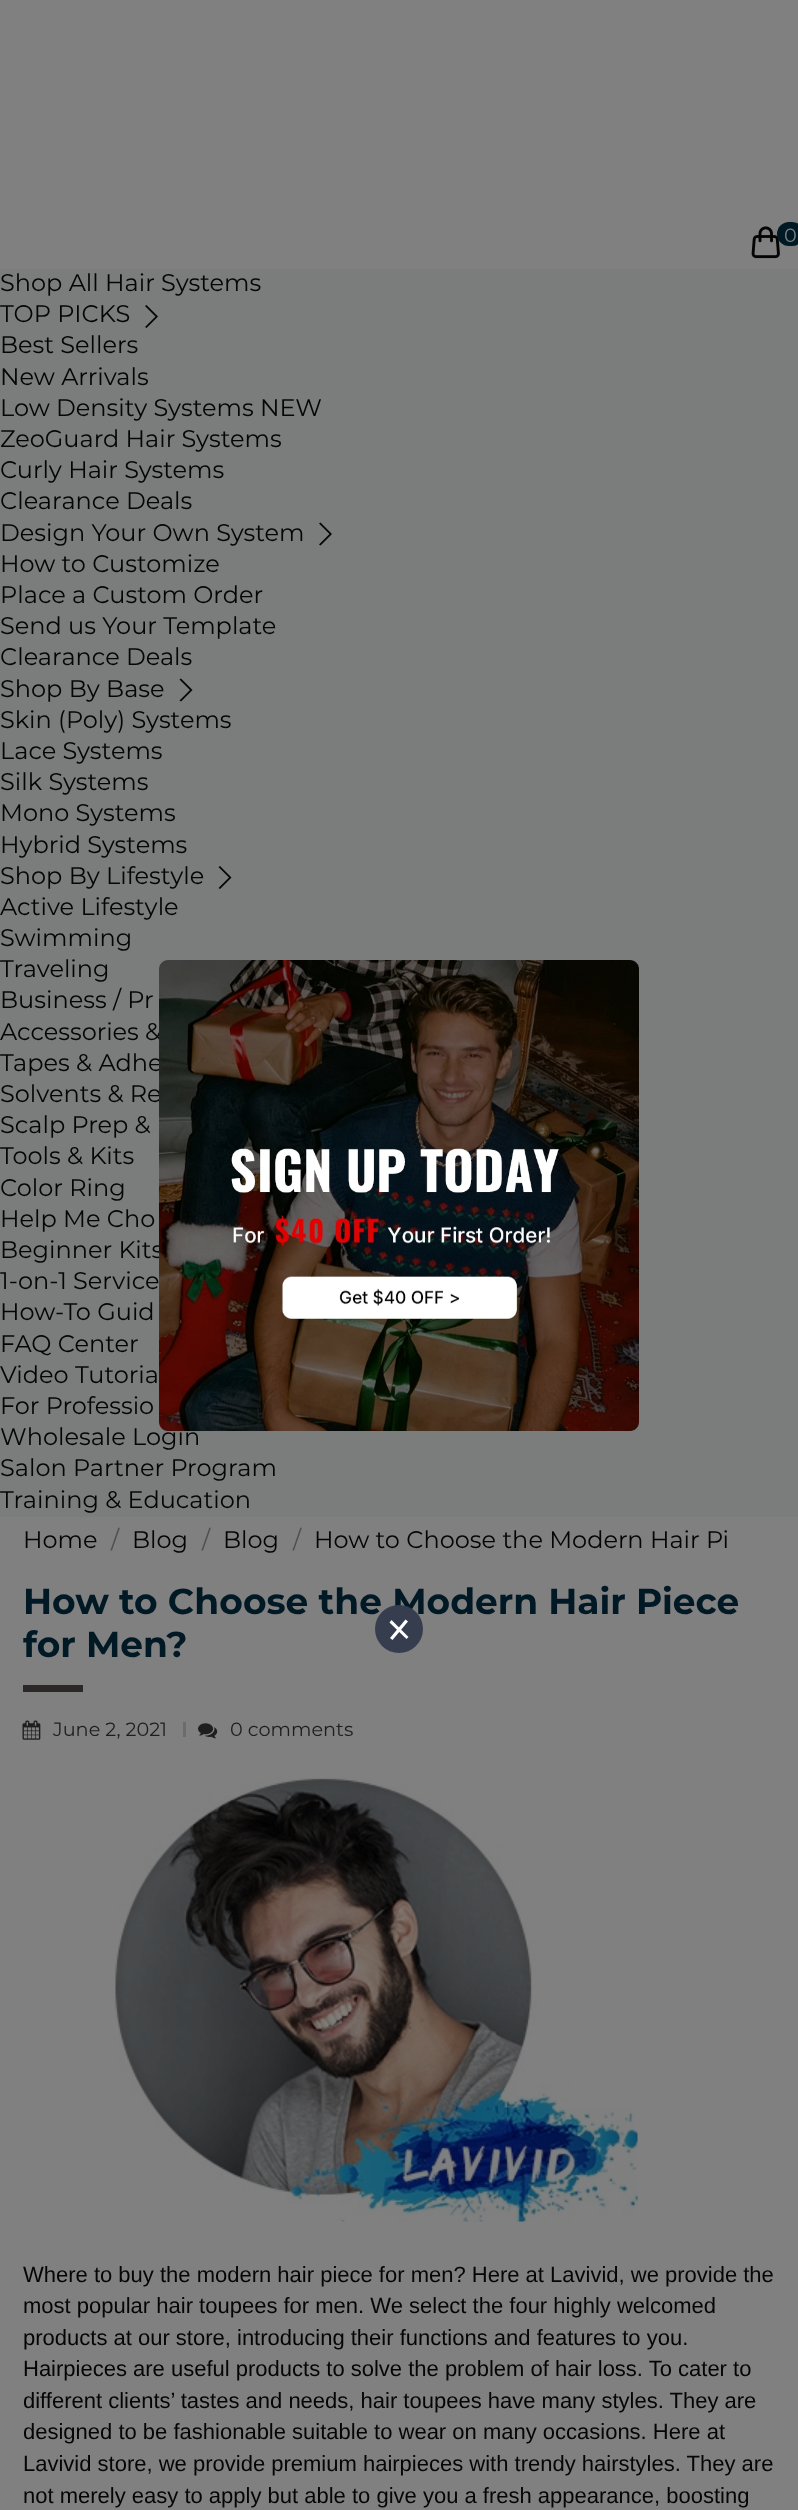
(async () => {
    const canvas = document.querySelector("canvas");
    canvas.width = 798;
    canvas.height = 2510;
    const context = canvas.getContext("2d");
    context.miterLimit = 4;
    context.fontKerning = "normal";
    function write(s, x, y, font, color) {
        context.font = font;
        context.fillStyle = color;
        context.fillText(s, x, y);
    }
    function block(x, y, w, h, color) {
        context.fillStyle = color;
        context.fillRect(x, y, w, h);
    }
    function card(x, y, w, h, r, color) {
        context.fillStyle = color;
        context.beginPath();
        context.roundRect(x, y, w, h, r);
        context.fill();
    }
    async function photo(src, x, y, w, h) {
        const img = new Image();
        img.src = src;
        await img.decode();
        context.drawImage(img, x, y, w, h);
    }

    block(0, 0, 798, 2510, "rgb(128, 128, 128)");
    block(0, 269, 798, 1248, "rgb(123, 125, 125)");
    await photo("media/1.png", 751, 226, 29, 33);
    card(777, 222, 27, 24, 12, "rgb(1, 25, 36)");
    write("0", 784, 242, "19.25px Montserrat", "rgb(128, 128, 128)");
    write("Shop All Hair Systems", 0, 291, "24px Montserrat", "rgb(5, 5, 5)");
    write("TOP PICKS", 0, 322, "24px Montserrat", "rgb(5, 5, 5)");
    context.beginPath();
    context.moveTo(146.5, 328);
    context.lineTo(145, 327);
    context.lineTo(155.5, 316.5);
    context.lineTo(145, 306);
    context.lineTo(146.5, 305);
    context.lineTo(158, 316.5);
    context.closePath();
    context.fill();
    write("Best Sellers", 0, 353, "24px Montserrat", "rgb(5, 5, 5)");
    write("New Arrivals", 0, 385, "24px Montserrat", "rgb(5, 5, 5)");
    write("Low Density Systems NEW", 0, 416, "24px Montserrat", "rgb(5, 5, 5)");
    write("ZeoGuard Hair Systems", 0, 447, "24px Montserrat", "rgb(5, 5, 5)");
    write("Curly Hair Systems", 0, 478, "24px Montserrat", "rgb(5, 5, 5)");
    write("Clearance Deals", 0, 509, "24px Montserrat", "rgb(5, 5, 5)");
    write("Design Your Own System", 0, 541, "24px Montserrat", "rgb(5, 5, 5)");
    context.beginPath();
    context.moveTo(320.5, 545.5);
    context.lineTo(319, 544.5);
    context.lineTo(329.5, 534);
    context.lineTo(319, 523.5);
    context.lineTo(320.5, 522.5);
    context.lineTo(332, 534);
    context.closePath();
    context.fill();
    write("How to Customize", 0, 572, "24px Montserrat", "rgb(5, 5, 5)");
    write("Place a Custom Order", 0, 603, "24px Montserrat", "rgb(5, 5, 5)");
    write("Send us Your Template", 0, 634, "24px Montserrat", "rgb(5, 5, 5)");
    write("Clearance Deals", 0, 665, "24px Montserrat", "rgb(5, 5, 5)");
    write("Shop By Base", 0, 697, "24px Montserrat", "rgb(5, 5, 5)");
    context.beginPath();
    context.moveTo(181, 701.5);
    context.lineTo(179.5, 700.5);
    context.lineTo(190, 690);
    context.lineTo(179.5, 679.5);
    context.lineTo(181, 678.5);
    context.lineTo(192.5, 690);
    context.closePath();
    context.fill();
    write("Skin (Poly) Systems", 0, 728, "24px Montserrat", "rgb(5, 5, 5)");
    write("Lace Systems", 0, 759, "24px Montserrat", "rgb(5, 5, 5)");
    write("Silk Systems", 0, 790, "24px Montserrat", "rgb(5, 5, 5)");
    write("Mono Systems", 0, 821, "24px Montserrat", "rgb(5, 5, 5)");
    write("Hybrid Systems", 0, 853, "24px Montserrat", "rgb(5, 5, 5)");
    write("Shop By Lifestyle", 0, 884, "24px Montserrat", "rgb(5, 5, 5)");
    context.beginPath();
    context.moveTo(220, 889);
    context.lineTo(218.5, 888);
    context.lineTo(229, 877.5);
    context.lineTo(218.5, 867);
    context.lineTo(220, 866);
    context.lineTo(231.5, 877.5);
    context.closePath();
    context.fill();
    write("Active Lifestyle", 0, 915, "24px Montserrat", "rgb(5, 5, 5)");
    write("Swimming", 0, 946, "24px Montserrat", "rgb(5, 5, 5)");
    write("Traveling", 0, 977, "24px Montserrat", "rgb(5, 5, 5)");
    write("Business / Pr", 0, 1008, "24px Montserrat", "rgb(5, 5, 5)");
    write("Accessories &", 0, 1040, "24px Montserrat", "rgb(5, 5, 5)");
    write("Tapes & Adhe", 0, 1071, "24px Montserrat", "rgb(5, 5, 5)");
    write("Solvents & Re", 0, 1102, "24px Montserrat", "rgb(5, 5, 5)");
    write("Scalp Prep &", 0, 1133, "24px Montserrat", "rgb(5, 5, 5)");
    write("Tools & Kits", 0, 1164, "24px Montserrat", "rgb(5, 5, 5)");
    write("Color Ring", 0, 1196, "24px Montserrat", "rgb(5, 5, 5)");
    write("Help Me Cho", 0, 1227, "24px Montserrat", "rgb(5, 5, 5)");
    write("Beginner Kits", 0, 1258, "24px Montserrat", "rgb(5, 5, 5)");
    write("1-on-1 Service", 0, 1289, "24px Montserrat", "rgb(5, 5, 5)");
    write("How-To Guid", 0, 1320, "24px Montserrat", "rgb(5, 5, 5)");
    write("FAQ Center", 0, 1352, "24px Montserrat", "rgb(5, 5, 5)");
    write("Video Tutoria", 0, 1383, "24px Montserrat", "rgb(5, 5, 5)");
    write("For Professio", 0, 1414, "24px Montserrat", "rgb(5, 5, 5)");
    write("Wholesale Login", 0, 1445, "24px Montserrat", "rgb(5, 5, 5)");
    write("Salon Partner Program", 0, 1476, "24px Montserrat", "rgb(5, 5, 5)");
    write("Training & Education", 0, 1508, "24px Montserrat", "rgb(5, 5, 5)");
    write("Home", 23, 1548, "24px Montserrat", "rgb(5, 5, 5)");
    write("/", 111, 1548, "24px Montserrat", "rgb(79, 79, 79)");
    write("Blog", 132, 1548, "24px Montserrat", "rgb(5, 5, 5)");
    write("/", 202, 1548, "24px Montserrat", "rgb(79, 79, 79)");
    write("Blog", 223, 1548, "24px Montserrat", "rgb(5, 5, 5)");
    write("/", 293, 1548, "24px Montserrat", "rgb(79, 79, 79)");
    write("How to Choose the Modern Hair Pi", 314, 1548, "24px Montserrat", "rgb(5, 5, 5)");
    write("How to Choose the Modern Hair Piece", 23, 1614, "bold 36px Montserrat", "rgb(1, 25, 36)");
    write("for Men?", 23, 1657, "bold 36px Montserrat", "rgb(1, 25, 36)");
    block(23, 1685, 60, 7, "rgb(45, 40, 40)");
    await photo("media/2.png", 22, 1720, 19, 20);
    write("June 2, 2021", 53, 1736, "19.25px Montserrat", "rgb(30, 30, 30)");
    block(183, 1722, 3, 15, "rgb(108, 108, 108)");
    await photo("media/3.png", 198, 1723, 20, 16);
    write("0 comments", 230, 1736, "19.25px Montserrat", "rgb(30, 30, 30)");
    await photo("media/4.png", 115, 1778, 523, 444);
    write("Where to buy the modern hair piece for men? Here at Lavivid, we provide the", 23, 2282, "22px Liberation Sans", "rgb(5, 5, 5)");
    write("most popular hair toupees for men. We select the four highly welcomed", 23, 2313, "22px Liberation Sans", "rgb(5, 5, 5)");
    write("products at our store, introducing their functions and features to you.", 23, 2345, "22px Liberation Sans", "rgb(5, 5, 5)");
    write("Hairpieces are useful products to solve the problem of hair loss. To cater to", 23, 2376, "22px Liberation Sans", "rgb(5, 5, 5)");
    write("different clients’ tastes and needs, hair toupees have many styles. They are", 23, 2408, "22px Liberation Sans", "rgb(5, 5, 5)");
    write("designed to be fashionable suitable to wear on many occasions. Here at", 23, 2439, "22px Liberation Sans", "rgb(5, 5, 5)");
    write("Lavivid store, we provide premium hairpieces with trendy hairstyles. They are", 23, 2471, "22px Liberation Sans", "rgb(5, 5, 5)");
    write("not merely easy to apply but able to give you a fresh appearance, boosting", 23, 2503, "22px Liberation Sans", "rgb(5, 5, 5)");
    await photo("media/5.png", 159, 960, 480, 471);
    context.fillStyle = "rgb(54, 61, 78)";
    context.beginPath();
    context.arc(399, 1629, 24, 0, Math.PI * 2);
    context.fill();
    context.fillStyle = "rgb(255, 255, 255)";
    context.beginPath();
    context.moveTo(391.5, 1620);
    context.lineTo(408.5, 1637);
    context.lineTo(406.5, 1639);
    context.lineTo(389.5, 1622.5);
    context.closePath();
    context.fill();
    context.beginPath();
    context.moveTo(408, 1621.5);
    context.lineTo(392.5, 1640);
    context.lineTo(390, 1638);
    context.lineTo(405.5, 1619.5);
    context.closePath();
    context.fill();
})();
